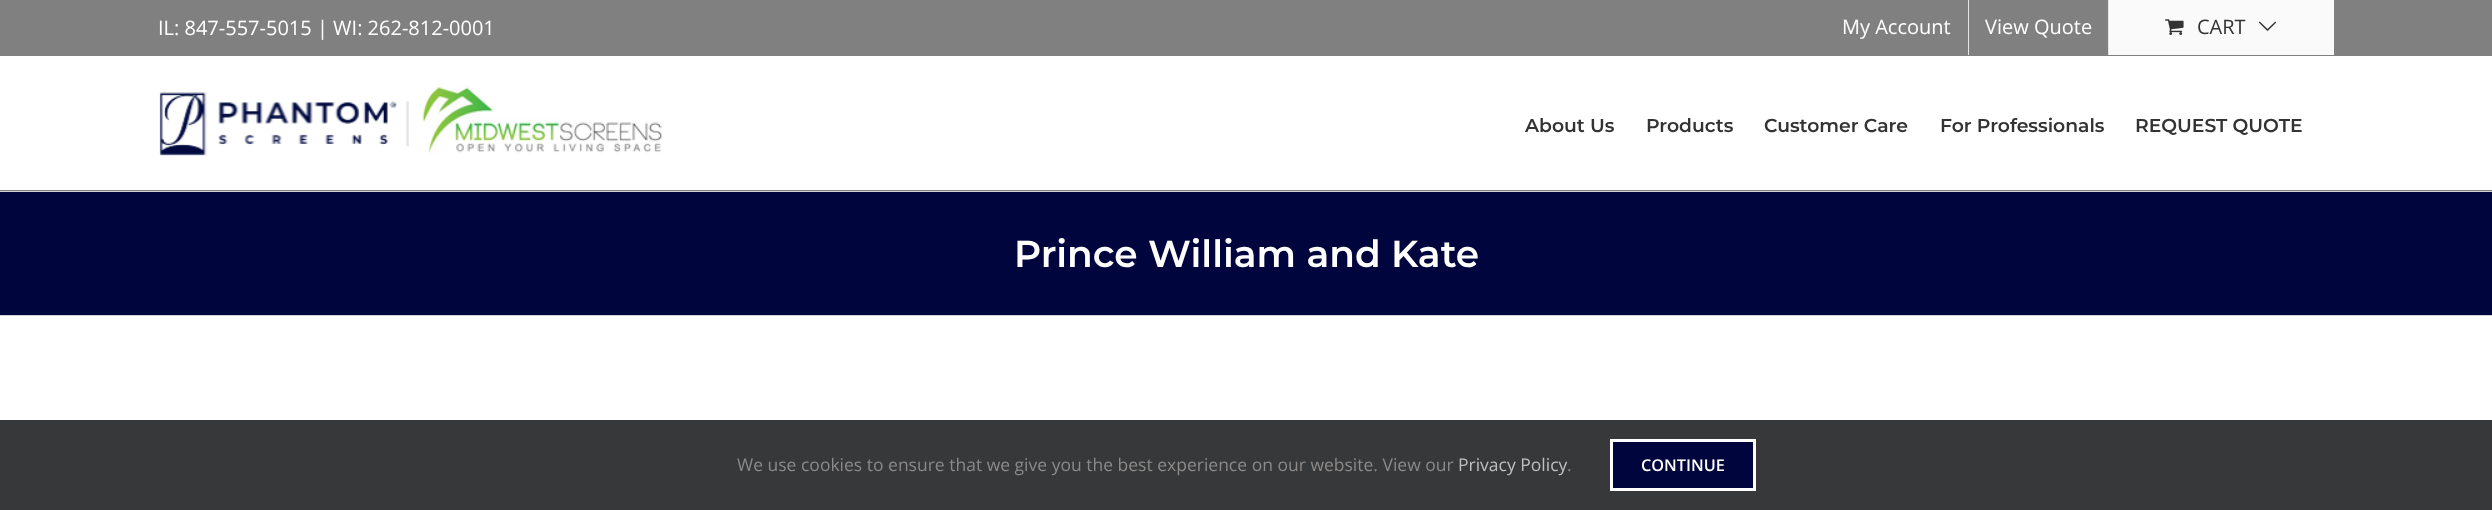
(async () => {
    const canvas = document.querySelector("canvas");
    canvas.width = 2492;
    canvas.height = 510;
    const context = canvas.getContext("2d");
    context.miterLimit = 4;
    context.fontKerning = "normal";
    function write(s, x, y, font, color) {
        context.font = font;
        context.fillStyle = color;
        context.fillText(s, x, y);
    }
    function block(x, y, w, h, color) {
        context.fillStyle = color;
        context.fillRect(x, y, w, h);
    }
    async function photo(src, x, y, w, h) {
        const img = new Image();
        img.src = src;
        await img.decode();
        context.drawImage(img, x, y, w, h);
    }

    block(0, 0, 2492, 510, "rgb(255, 255, 255)");
    block(0, 0, 2492, 56, "rgb(128, 128, 128)");
    write("IL: 847-557-5015 | WI: 262-812-0001", 158, 35, "20px Open Sans", "rgb(255, 255, 255)");
    write("My Account", 1842, 34, "20px Open Sans", "rgb(255, 255, 255)");
    block(1968, 0, 1, 55, "rgb(229, 229, 229)");
    write("View Quote", 1985, 34, "20px Open Sans", "rgb(255, 255, 255)");
    block(2108, 0, 1, 55, "rgb(229, 229, 229)");
    block(2109, 0, 225, 55, "rgb(250, 250, 250)");
    await photo("media/1.png", 2165, 19, 19, 16);
    write("CART", 2197, 34, "20px Open Sans", "rgb(51, 51, 51)");
    await photo("media/2.png", 2259, 21, 17, 10);
    block(0, 190, 2492, 1, "rgb(128, 128, 128)");
    await photo("media/3.png", 159, 84, 504, 72);
    write("About Us", 1525, 132, "600 18.75px Montserrat", "rgb(51, 51, 51)");
    write("Products", 1646, 132, "600 18.75px Montserrat", "rgb(51, 51, 51)");
    write("Customer Care", 1764, 132, "600 18.75px Montserrat", "rgb(51, 51, 51)");
    write("For Professionals", 1940, 132, "600 18.75px Montserrat", "rgb(51, 51, 51)");
    write("REQUEST QUOTE", 2135, 132, "600 18.75px Montserrat", "rgb(51, 51, 51)");
    block(0, 192, 2492, 123, "rgb(0, 5, 62)");
    block(0, 191, 2492, 1, "rgb(210, 211, 212)");
    block(0, 315, 2492, 1, "rgb(210, 211, 212)");
    write("Prince William and Kate", 1014, 267, "600 37.5px Montserrat", "rgb(255, 255, 255)");
    block(0, 420, 2492, 90, "rgb(54, 56, 57)");
    write("We use cookies to ensure that we give you the best experience on our website. View our", 737, 471, "17.5px Open Sans", "rgb(140, 137, 137)");
    write("Privacy Policy", 1458, 471, "17.5px Open Sans", "rgb(191, 191, 191)");
    write(".", 1567, 471, "17.5px Open Sans", "rgb(140, 137, 137)");
    context.fillStyle = "rgb(0, 5, 62)";
    context.beginPath();
    context.rect(1611.5, 440.5, 143, 49);
    context.fill();
    context.strokeStyle = "rgb(255, 255, 255)";
    context.lineWidth = 3;
    context.stroke();
    write("CONTINUE", 1641, 471, "600 16.25px Open Sans", "rgb(255, 255, 255)");
})();
